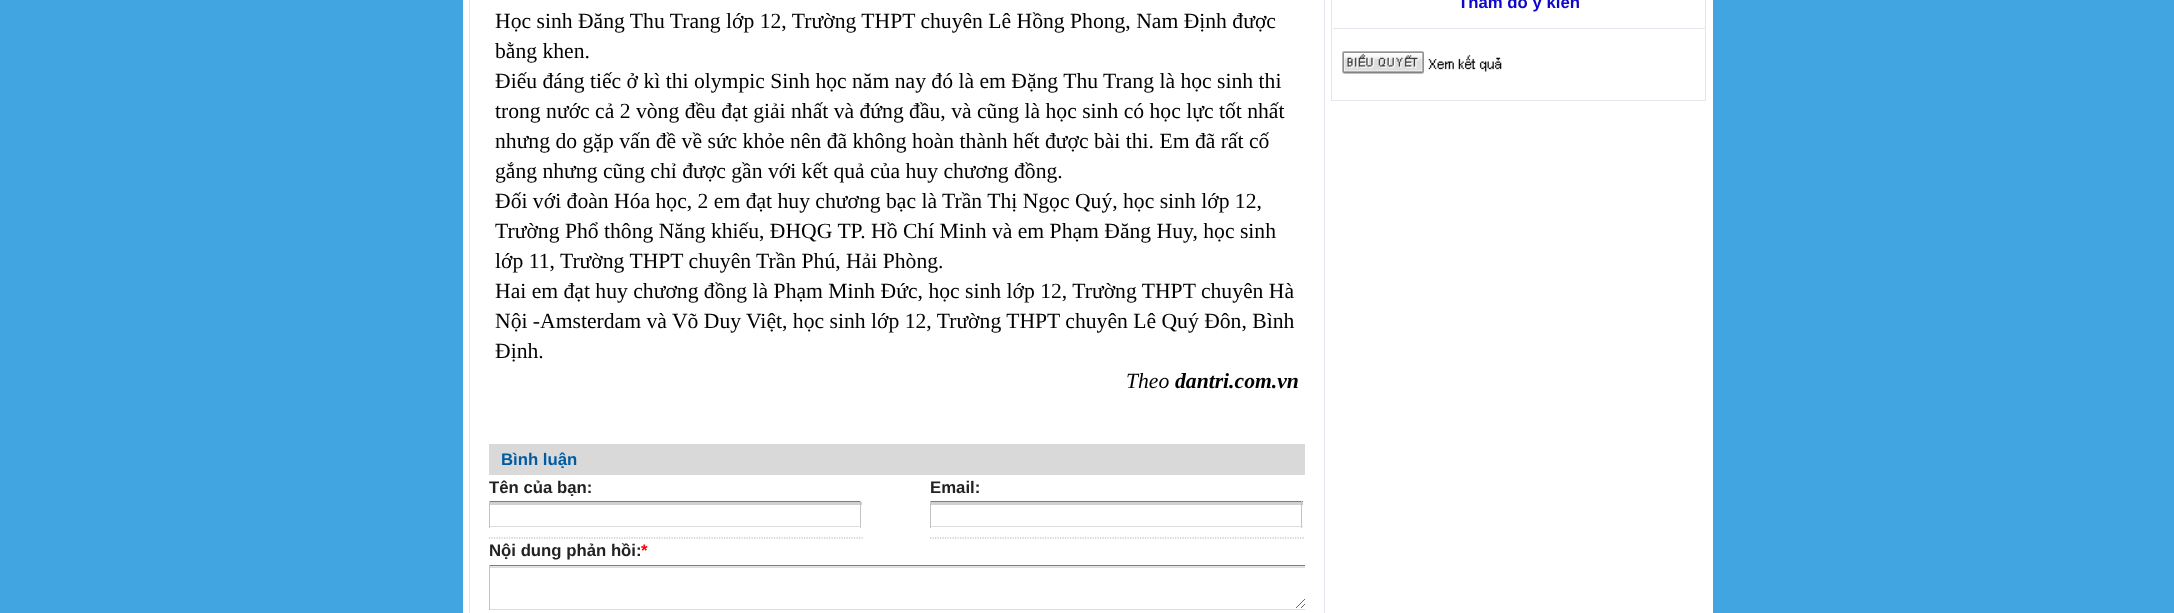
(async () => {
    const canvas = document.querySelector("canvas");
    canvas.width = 2174;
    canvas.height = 613;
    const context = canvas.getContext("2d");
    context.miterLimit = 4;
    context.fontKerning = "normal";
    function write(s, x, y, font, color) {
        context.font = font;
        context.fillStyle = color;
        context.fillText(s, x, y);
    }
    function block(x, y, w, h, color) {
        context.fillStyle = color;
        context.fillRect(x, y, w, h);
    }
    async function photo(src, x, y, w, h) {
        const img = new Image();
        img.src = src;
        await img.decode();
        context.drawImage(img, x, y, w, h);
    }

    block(0, 0, 2174, 613, "rgb(65, 165, 225)");
    block(463, 0, 1250, 613, "rgb(255, 255, 255)");
    context.strokeStyle = "rgb(226, 230, 239)";
    context.strokeRect(1331.5, -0.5, 374, 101);
    block(1333, 28, 372, 1, "rgb(226, 230, 239)");
    write("Thăm dò ý kiến", 1458, 8, "bold 16.75px Liberation Sans", "rgb(15, 8, 201)");
    await photo("media/1.png", 1342, 51, 82, 23);
    await photo("media/2.png", 1428, 55, 74, 17);
    context.strokeRect(469.5, -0.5, 855, 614);
    write("Học sinh Đăng Thu Trang lớp 12, Trường THPT chuyên Lê Hồng Phong, Nam Định được", 495, 28, "21.65px Liberation Serif", "rgb(0, 0, 0)");
    write("bằng khen.", 495, 58, "21.65px Liberation Serif", "rgb(0, 0, 0)");
    write("Điếu đáng tiếc ở kì thi olympic Sinh học năm nay đó là em Đặng Thu Trang là học sinh thi", 495, 88, "21.65px Liberation Serif", "rgb(0, 0, 0)");
    write("trong nước cả 2 vòng đều đạt giải nhất và đứng đầu, và cũng là học sinh có học lực tốt nhất", 495, 118, "21.65px Liberation Serif", "rgb(0, 0, 0)");
    write("nhưng do gặp vấn đề về sức khỏe nên đã không hoàn thành hết được bài thi. Em đã rất cố", 495, 148, "21.65px Liberation Serif", "rgb(0, 0, 0)");
    write("gắng nhưng cũng chỉ được gần với kết quả của huy chương đồng.", 495, 178, "21.65px Liberation Serif", "rgb(0, 0, 0)");
    write("Đối với đoàn Hóa học, 2 em đạt huy chương bạc là Trần Thị Ngọc Quý, học sinh lớp 12,", 495, 208, "21.65px Liberation Serif", "rgb(0, 0, 0)");
    write("Trường Phổ thông Năng khiếu, ĐHQG TP. Hồ Chí Minh và em Phạm Đăng Huy, học sinh", 495, 238, "21.65px Liberation Serif", "rgb(0, 0, 0)");
    write("lớp 11, Trường THPT chuyên Trần Phú, Hải Phòng.", 495, 268, "21.65px Liberation Serif", "rgb(0, 0, 0)");
    write("Hai em đạt huy chương đồng là Phạm Minh Đức, học sinh lớp 12, Trường THPT chuyên Hà", 495, 298, "21.65px Liberation Serif", "rgb(0, 0, 0)");
    write("Nội -Amsterdam và Võ Duy Việt, học sinh lớp 12, Trường THPT chuyên Lê Quý Đôn, Bình", 495, 328, "21.65px Liberation Serif", "rgb(0, 0, 0)");
    write("Định.", 495, 358, "21.65px Liberation Serif", "rgb(0, 0, 0)");
    write("Theo", 1126, 388, "italic 21.65px Liberation Serif", "rgb(0, 0, 0)");
    write("dantri.com.vn", 1175, 388, "italic bold 21.65px Liberation Serif", "rgb(0, 0, 0)");
    block(489, 444, 816, 31, "rgb(217, 217, 217)");
    write("Bình luận", 501, 465, "bold 16.75px Liberation Sans", "rgb(0, 92, 161)");
    context.beginPath();
    context.moveTo(489, 538);
    context.lineTo(864, 538);
    context.strokeStyle = "rgb(163, 179, 192)";
    context.lineWidth = 1.2;
    context.setLineDash([1.25, 1.25]);
    context.stroke();
    write("Tên của bạn:", 489, 493, "bold 16.75px Liberation Sans", "rgb(34, 34, 34)");
    block(489, 502, 373, 3, "rgb(209, 209, 209)");
    block(489, 501, 372, 1, "rgb(124, 124, 124)");
    block(860, 501, 1, 27, "rgb(195, 195, 195)");
    block(489, 526, 372, 1, "rgb(221, 221, 221)");
    block(489, 501, 1, 27, "rgb(195, 195, 195)");
    context.beginPath();
    context.moveTo(930, 538);
    context.lineTo(1305, 538);
    context.stroke();
    write("Email:", 930, 493, "bold 16.75px Liberation Sans", "rgb(34, 34, 34)");
    block(930, 502, 373, 3, "rgb(209, 209, 209)");
    block(930, 501, 373, 1, "rgb(124, 124, 124)");
    block(1301, 501, 1, 27, "rgb(195, 195, 195)");
    block(930, 526, 373, 1, "rgb(221, 221, 221)");
    block(930, 501, 1, 27, "rgb(195, 195, 195)");
    write("Nội dung phản hồi:", 489, 556, "bold 16.75px Liberation Sans", "rgb(34, 34, 34)");
    write("*", 641, 556, "bold 16.75px Liberation Sans", "rgb(255, 0, 0)");
    await photo("media/3.png", 490, 566, 815, 42);
    block(489, 565, 816, 1, "rgb(124, 124, 124)");
    block(489, 609, 816, 1, "rgb(221, 221, 221)");
    block(489, 565, 1, 45, "rgb(195, 195, 195)");
})();
